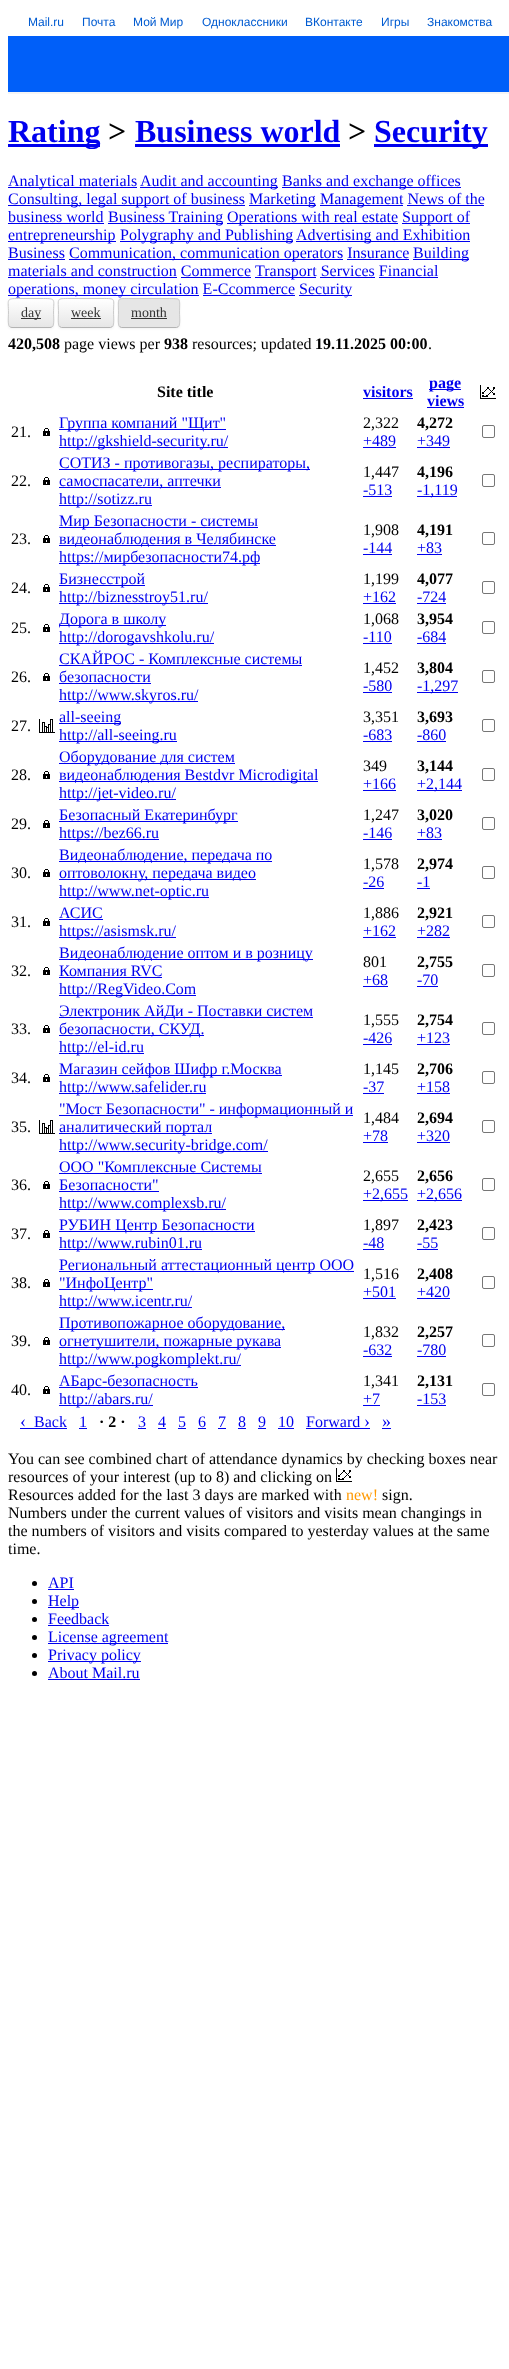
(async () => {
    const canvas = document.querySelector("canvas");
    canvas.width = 509;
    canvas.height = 2369;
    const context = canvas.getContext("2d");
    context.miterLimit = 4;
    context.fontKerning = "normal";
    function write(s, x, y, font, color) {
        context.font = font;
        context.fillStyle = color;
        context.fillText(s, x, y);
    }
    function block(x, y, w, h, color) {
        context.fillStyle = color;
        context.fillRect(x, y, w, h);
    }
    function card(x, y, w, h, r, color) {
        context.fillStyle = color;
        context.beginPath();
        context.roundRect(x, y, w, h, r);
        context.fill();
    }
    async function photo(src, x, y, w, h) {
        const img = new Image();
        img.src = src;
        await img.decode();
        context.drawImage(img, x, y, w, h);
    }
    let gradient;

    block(0, 0, 509, 2369, "rgb(255, 255, 255)");
    write("Mail.ru", 28, 26, "12px Liberation Sans", "rgb(0, 91, 209)");
    write("Почта", 82, 26, "12px Liberation Sans", "rgb(0, 91, 209)");
    write("Мой Мир", 133, 26, "12px Liberation Sans", "rgb(0, 91, 209)");
    write("Одноклассники", 202, 26, "12px Liberation Sans", "rgb(0, 91, 209)");
    write("ВКонтакте", 305, 26, "12px Liberation Sans", "rgb(0, 91, 209)");
    write("Игры", 381, 26, "12px Liberation Sans", "rgb(0, 91, 209)");
    write("Знакомства", 427, 26, "12px Liberation Sans", "rgb(0, 91, 209)");
    block(8, 92, 501, 2, "rgb(245, 245, 245)");
    block(8, 36, 501, 56, "rgb(0, 95, 249)");
    block(8, 144, 92, 3, "rgb(0, 0, 238)");
    write("Rating", 8, 142, "bold 32px Liberation Serif", "rgb(0, 0, 238)");
    write(">", 108, 142, "bold 32px Liberation Serif", "rgb(0, 0, 0)");
    write("Business world", 135, 142, "bold 32px Liberation Serif", "rgb(0, 0, 238)");
    block(135, 144, 205, 3, "rgb(0, 0, 238)");
    write(">", 348, 142, "bold 32px Liberation Serif", "rgb(0, 0, 0)");
    block(374, 144, 114, 3, "rgb(0, 0, 238)");
    write("Security", 374, 142, "bold 32px Liberation Serif", "rgb(0, 0, 238)");
    block(8, 187, 129, 1, "rgb(0, 0, 238)");
    write("Analytical materials", 8, 186, "16px Liberation Serif", "rgb(0, 0, 238)");
    block(140, 187, 138, 1, "rgb(0, 0, 238)");
    write("Audit and accounting", 140, 186, "16px Liberation Serif", "rgb(0, 0, 238)");
    block(282, 187, 179, 1, "rgb(0, 0, 238)");
    write("Banks and exchange offices", 282, 186, "16px Liberation Serif", "rgb(0, 0, 238)");
    block(8, 205, 237, 1, "rgb(0, 0, 238)");
    write("Consulting, legal support of business", 8, 204, "16px Liberation Serif", "rgb(0, 0, 238)");
    block(249, 205, 67, 1, "rgb(0, 0, 238)");
    write("Marketing", 249, 204, "16px Liberation Serif", "rgb(0, 0, 238)");
    block(320, 205, 83, 1, "rgb(0, 0, 238)");
    write("Management News of the", 320, 204, "16px Liberation Serif", "rgb(0, 0, 238)");
    write("business world", 8, 222, "16px Liberation Serif", "rgb(0, 0, 238)");
    block(407, 205, 77, 1, "rgb(0, 0, 238)");
    block(8, 223, 96, 1, "rgb(0, 0, 238)");
    block(108, 223, 115, 1, "rgb(0, 0, 238)");
    write("Business Training", 108, 222, "16px Liberation Serif", "rgb(0, 0, 238)");
    block(227, 223, 171, 1, "rgb(0, 0, 238)");
    write("Operations with real estate", 227, 222, "16px Liberation Serif", "rgb(0, 0, 238)");
    block(402, 223, 68, 1, "rgb(0, 0, 238)");
    write("Support of", 402, 222, "16px Liberation Serif", "rgb(0, 0, 238)");
    block(8, 241, 108, 1, "rgb(0, 0, 238)");
    write("entrepreneurship", 8, 240, "16px Liberation Serif", "rgb(0, 0, 238)");
    block(120, 241, 173, 1, "rgb(0, 0, 238)");
    write("Polygraphy and Publishing", 120, 240, "16px Liberation Serif", "rgb(0, 0, 238)");
    block(296, 241, 174, 1, "rgb(0, 0, 238)");
    write("Advertising and Exhibition", 296, 240, "16px Liberation Serif", "rgb(0, 0, 238)");
    write("Business", 8, 258, "16px Liberation Serif", "rgb(0, 0, 238)");
    block(8, 259, 57, 1, "rgb(0, 0, 238)");
    block(69, 259, 274, 1, "rgb(0, 0, 238)");
    write("Communication, communication operators Insurance", 69, 258, "16px Liberation Serif", "rgb(0, 0, 238)");
    block(413, 259, 56, 1, "rgb(0, 0, 238)");
    write("Building", 413, 258, "16px Liberation Serif", "rgb(0, 0, 238)");
    block(347, 259, 62, 1, "rgb(0, 0, 238)");
    write("materials and construction Commerce", 8, 276, "16px Liberation Serif", "rgb(0, 0, 238)");
    block(8, 277, 169, 1, "rgb(0, 0, 238)");
    block(255, 277, 61, 1, "rgb(0, 0, 238)");
    write("Transport Services Financial", 255, 276, "16px Liberation Serif", "rgb(0, 0, 238)");
    block(181, 277, 70, 1, "rgb(0, 0, 238)");
    block(320, 277, 55, 1, "rgb(0, 0, 238)");
    block(8, 295, 191, 1, "rgb(0, 0, 238)");
    write("operations, money circulation E-Ccommerce", 8, 294, "16px Liberation Serif", "rgb(0, 0, 238)");
    block(379, 277, 59, 1, "rgb(0, 0, 238)");
    block(299, 295, 53, 1, "rgb(0, 0, 238)");
    write("Security", 299, 294, "16px Liberation Serif", "rgb(0, 0, 238)");
    block(203, 295, 92, 1, "rgb(0, 0, 238)");
    context.fillStyle = "rgba(0, 0, 0, 0.05)";
    context.filter = "blur(1px)";
    context.beginPath();
    context.roundRect(8, 299, 46, 30, 4);
    context.fill();
    context.filter = "none";
    card(8, 298, 46, 30, 4, "rgb(245, 245, 245)");
    context.save();
    context.beginPath();
    context.roundRect(8, 298, 46, 30, 4);
    context.clip();
    gradient = context.createLinearGradient(31, 299, 31, 327);
    gradient.addColorStop(0, "rgb(255, 255, 255)");
    gradient.addColorStop(1, "rgb(230, 230, 230)");
    context.fillStyle = gradient;
    context.fillRect(8, 299, 46, 28);
    context.restore();
    context.beginPath();
    context.moveTo(52.5, 326.5);
    context.bezierCurveTo(52, 327, 51, 327.5, 50, 327.5);
    context.lineTo(12, 327.5);
    context.bezierCurveTo(11, 327.5, 10, 327, 9.5, 326.5);
    context.strokeStyle = "rgb(179, 179, 179)";
    context.stroke();
    context.beginPath();
    context.moveTo(9.5, 326.5);
    context.bezierCurveTo(7.5, 324.5, 8.5, 316, 8.5, 313);
    context.bezierCurveTo(8.5, 299.5, 5.5, 298.5, 18.5, 298.5);
    context.lineTo(43.5, 298.5);
    context.bezierCurveTo(56.5, 298.5, 53.5, 299.5, 53.5, 313);
    context.bezierCurveTo(53.5, 316, 54.5, 324.5, 52.5, 326.5);
    context.strokeStyle = "rgb(204, 204, 204)";
    context.stroke();
    block(21, 318, 20, 1, "rgb(51, 51, 51)");
    write("day", 21, 317, "14px Liberation Serif", "rgb(51, 51, 51)");
    context.fillStyle = "rgba(0, 0, 0, 0.05)";
    context.filter = "blur(1px)";
    context.beginPath();
    context.roundRect(58, 299, 56, 30, 4);
    context.fill();
    context.filter = "none";
    card(58, 298, 56, 30, 4, "rgb(245, 245, 245)");
    context.save();
    context.beginPath();
    context.roundRect(58, 298, 56, 30, 4);
    context.clip();
    gradient = context.createLinearGradient(86, 299, 86, 327);
    gradient.addColorStop(0, "rgb(255, 255, 255)");
    gradient.addColorStop(1, "rgb(230, 230, 230)");
    context.fillStyle = gradient;
    context.fillRect(58, 299, 56, 28);
    context.restore();
    context.fillStyle = "rgb(255, 255, 255)";
    context.beginPath();
    context.moveTo(62, 300);
    context.lineTo(110, 300);
    context.bezierCurveTo(112, 300, 113, 301, 113, 303);
    context.bezierCurveTo(113, 297, 106, 299, 102, 299);
    context.lineTo(70, 299);
    context.bezierCurveTo(66, 299, 59, 297, 59, 303);
    context.bezierCurveTo(59, 301, 60, 300, 62, 300);
    context.closePath();
    context.fill();
    context.beginPath();
    context.moveTo(112.5, 326.5);
    context.lineTo(110.5, 327.5);
    context.lineTo(61.5, 327.5);
    context.lineTo(59.5, 326.5);
    context.strokeStyle = "rgb(179, 179, 179)";
    context.stroke();
    context.beginPath();
    context.moveTo(59.5, 326.5);
    context.bezierCurveTo(57.5, 324.5, 58.5, 316, 58.5, 313);
    context.bezierCurveTo(58.5, 298, 55.5, 298.5, 70, 298.5);
    context.lineTo(102, 298.5);
    context.bezierCurveTo(116.5, 298.5, 113.5, 298, 113.5, 313);
    context.bezierCurveTo(113.5, 316, 114.5, 324.5, 112.5, 326.5);
    context.strokeStyle = "rgb(204, 204, 204)";
    context.stroke();
    write("week", 71, 317, "14px Liberation Serif", "rgb(51, 51, 51)");
    block(71, 318, 30, 1, "rgb(51, 51, 51)");
    context.fillStyle = "rgba(0, 0, 0, 0.05)";
    context.filter = "blur(1px)";
    context.beginPath();
    context.roundRect(118, 299, 62, 30, 4);
    context.fill();
    context.filter = "none";
    card(118, 298, 62, 30, 4, "rgb(230, 230, 230)");
    context.beginPath();
    context.moveTo(178.5, 326.5);
    context.lineTo(176.5, 327.5);
    context.lineTo(121.5, 327.5);
    context.lineTo(119.5, 326.5);
    context.strokeStyle = "rgb(179, 179, 179)";
    context.stroke();
    context.beginPath();
    context.moveTo(119.5, 326.5);
    context.bezierCurveTo(117.5, 324.5, 118.5, 316, 118.5, 313);
    context.bezierCurveTo(118.5, 297.5, 116, 298.5, 131, 298.5);
    context.lineTo(167, 298.5);
    context.bezierCurveTo(182, 298.5, 179.5, 297.5, 179.5, 313);
    context.bezierCurveTo(179.5, 316, 180.5, 324.5, 178.5, 326.5);
    context.strokeStyle = "rgb(204, 204, 204)";
    context.stroke();
    write("month", 131, 317, "14px Liberation Serif", "rgb(51, 51, 51)");
    block(131, 318, 36, 1, "rgb(51, 51, 51)");
    write("420,508", 8, 349, "bold 16px Liberation Serif", "rgb(0, 0, 0)");
    write("page views per", 64, 349, "16px Liberation Serif", "rgb(0, 0, 0)");
    write("938", 164, 349, "bold 16px Liberation Serif", "rgb(0, 0, 0)");
    write("resources; updated", 192, 349, "16px Liberation Serif", "rgb(0, 0, 0)");
    write("19.11.2025 00:00", 315, 349, "bold 16px Liberation Serif", "rgb(0, 0, 0)");
    write(".", 428, 349, "16px Liberation Serif", "rgb(0, 0, 0)");
    write("Site title", 157, 397, "bold 16px Liberation Serif", "rgb(0, 0, 0)");
    write("visitors", 363, 397, "bold 16px Liberation Serif", "rgb(0, 0, 238)");
    block(363, 398, 50, 1, "rgb(0, 0, 238)");
    block(429, 389, 32, 1, "rgb(0, 0, 238)");
    write("page", 429, 388, "bold 16px Liberation Serif", "rgb(0, 0, 238)");
    write("views", 427, 406, "bold 16px Liberation Serif", "rgb(0, 0, 238)");
    block(427, 407, 37, 1, "rgb(0, 0, 238)");
    await photo("media/1.png", 480, 385, 16, 14);
    write("21.", 11, 437, "16px Liberation Serif", "rgb(0, 0, 0)");
    await photo("media/2.png", 43, 428, 7, 8);
    block(59, 429, 167, 1, "rgb(0, 0, 238)");
    write("Группа компаний \"Щит\"", 59, 428, "16px Liberation Serif", "rgb(0, 0, 238)");
    block(59, 447, 169, 1, "rgb(0, 0, 238)");
    write("http://gkshield-security.ru/", 59, 446, "16px Liberation Serif", "rgb(0, 0, 238)");
    write("2,322", 363, 428, "16px Liberation Serif", "rgb(0, 0, 0)");
    write("+489", 363, 446, "16px Liberation Serif", "rgb(0, 0, 238)");
    block(363, 447, 33, 1, "rgb(0, 0, 238)");
    write("4,272", 417, 428, "bold 16px Liberation Serif", "rgb(0, 0, 0)");
    write("+349", 417, 446, "16px Liberation Serif", "rgb(0, 0, 238)");
    block(417, 447, 33, 1, "rgb(0, 0, 238)");
    context.beginPath();
    context.roundRect(482.5, 425.5, 12, 12, 1.5);
    context.strokeStyle = "rgb(118, 118, 118)";
    context.stroke();
    write("22.", 11, 486, "16px Liberation Serif", "rgb(0, 0, 0)");
    await photo("media/2.png", 43, 477, 7, 8);
    block(59, 469, 251, 1, "rgb(0, 0, 238)");
    write("СОТИЗ - противогазы, респираторы,", 59, 468, "16px Liberation Serif", "rgb(0, 0, 238)");
    block(59, 487, 162, 1, "rgb(0, 0, 238)");
    write("самоспасатели, аптечки", 59, 486, "16px Liberation Serif", "rgb(0, 0, 238)");
    block(59, 505, 93, 1, "rgb(0, 0, 238)");
    write("http://sotizz.ru", 59, 504, "16px Liberation Serif", "rgb(0, 0, 238)");
    write("1,447", 363, 477, "16px Liberation Serif", "rgb(0, 0, 0)");
    write("-513", 363, 495, "16px Liberation Serif", "rgb(0, 0, 238)");
    block(363, 496, 29, 1, "rgb(0, 0, 238)");
    write("4,196", 417, 477, "bold 16px Liberation Serif", "rgb(0, 0, 0)");
    block(417, 496, 40, 1, "rgb(0, 0, 238)");
    write("-1,119", 417, 495, "16px Liberation Serif", "rgb(0, 0, 238)");
    context.beginPath();
    context.roundRect(482.5, 474.5, 12, 12, 1.5);
    context.stroke();
    write("23.", 11, 544, "16px Liberation Serif", "rgb(0, 0, 0)");
    await photo("media/2.png", 43, 535, 7, 8);
    block(59, 527, 199, 1, "rgb(0, 0, 238)");
    write("Мир Безопасности - системы", 59, 526, "16px Liberation Serif", "rgb(0, 0, 238)");
    block(59, 545, 217, 1, "rgb(0, 0, 238)");
    write("видеонаблюдения в Челябинске", 59, 544, "16px Liberation Serif", "rgb(0, 0, 238)");
    block(59, 563, 201, 1, "rgb(0, 0, 238)");
    write("https://мирбезопасности74.рф", 59, 562, "16px Liberation Serif", "rgb(0, 0, 238)");
    write("1,908", 363, 535, "16px Liberation Serif", "rgb(0, 0, 0)");
    write("-144", 363, 553, "16px Liberation Serif", "rgb(0, 0, 238)");
    block(363, 554, 29, 1, "rgb(0, 0, 238)");
    write("4,191", 417, 535, "bold 16px Liberation Serif", "rgb(0, 0, 0)");
    write("+83", 417, 553, "16px Liberation Serif", "rgb(0, 0, 238)");
    block(417, 554, 25, 1, "rgb(0, 0, 238)");
    context.beginPath();
    context.roundRect(482.5, 532.5, 12, 12, 1.5);
    context.stroke();
    write("24.", 11, 593, "16px Liberation Serif", "rgb(0, 0, 0)");
    await photo("media/2.png", 43, 584, 7, 8);
    block(59, 585, 86, 1, "rgb(0, 0, 238)");
    write("Бизнесстрой", 59, 584, "16px Liberation Serif", "rgb(0, 0, 238)");
    block(59, 603, 149, 1, "rgb(0, 0, 238)");
    write("http://biznesstroy51.ru/", 59, 602, "16px Liberation Serif", "rgb(0, 0, 238)");
    write("1,199", 363, 584, "16px Liberation Serif", "rgb(0, 0, 0)");
    write("+162", 363, 602, "16px Liberation Serif", "rgb(0, 0, 238)");
    block(363, 603, 33, 1, "rgb(0, 0, 238)");
    write("4,077", 417, 584, "bold 16px Liberation Serif", "rgb(0, 0, 0)");
    write("-724", 417, 602, "16px Liberation Serif", "rgb(0, 0, 238)");
    block(417, 603, 29, 1, "rgb(0, 0, 238)");
    context.beginPath();
    context.roundRect(482.5, 581.5, 12, 12, 1.5);
    context.stroke();
    write("25.", 11, 633, "16px Liberation Serif", "rgb(0, 0, 0)");
    await photo("media/2.png", 43, 624, 7, 8);
    block(59, 625, 107, 1, "rgb(0, 0, 238)");
    write("Дорога в школу", 59, 624, "16px Liberation Serif", "rgb(0, 0, 238)");
    block(59, 643, 155, 1, "rgb(0, 0, 238)");
    write("http://dorogavshkolu.ru/", 59, 642, "16px Liberation Serif", "rgb(0, 0, 238)");
    write("1,068", 363, 624, "16px Liberation Serif", "rgb(0, 0, 0)");
    write("-110", 363, 642, "16px Liberation Serif", "rgb(0, 0, 238)");
    block(363, 643, 29, 1, "rgb(0, 0, 238)");
    write("3,954", 417, 624, "bold 16px Liberation Serif", "rgb(0, 0, 0)");
    write("-684", 417, 642, "16px Liberation Serif", "rgb(0, 0, 238)");
    block(417, 643, 29, 1, "rgb(0, 0, 238)");
    context.beginPath();
    context.roundRect(482.5, 621.5, 12, 12, 1.5);
    context.stroke();
    write("26.", 11, 682, "16px Liberation Serif", "rgb(0, 0, 0)");
    await photo("media/2.png", 43, 673, 7, 8);
    write("СКАЙРОС - Комплексные системы", 59, 664, "16px Liberation Serif", "rgb(0, 0, 238)");
    block(59, 665, 243, 1, "rgb(0, 0, 238)");
    write("безопасности", 59, 682, "16px Liberation Serif", "rgb(0, 0, 238)");
    block(59, 683, 92, 1, "rgb(0, 0, 238)");
    block(59, 701, 139, 1, "rgb(0, 0, 238)");
    write("http://www.skyros.ru/", 59, 700, "16px Liberation Serif", "rgb(0, 0, 238)");
    write("1,452", 363, 673, "16px Liberation Serif", "rgb(0, 0, 0)");
    write("-580", 363, 691, "16px Liberation Serif", "rgb(0, 0, 238)");
    block(363, 692, 29, 1, "rgb(0, 0, 238)");
    write("3,804", 417, 673, "bold 16px Liberation Serif", "rgb(0, 0, 0)");
    block(417, 692, 41, 1, "rgb(0, 0, 238)");
    write("-1,297", 417, 691, "16px Liberation Serif", "rgb(0, 0, 238)");
    context.beginPath();
    context.roundRect(482.5, 670.5, 12, 12, 1.5);
    context.stroke();
    write("27.", 11, 731, "16px Liberation Serif", "rgb(0, 0, 0)");
    await photo("media/3.png", 39, 719, 16, 14);
    block(59, 723, 62, 1, "rgb(0, 0, 238)");
    write("all-seeing", 59, 722, "16px Liberation Serif", "rgb(0, 0, 238)");
    block(59, 741, 118, 1, "rgb(0, 0, 238)");
    write("http://all-seeing.ru", 59, 740, "16px Liberation Serif", "rgb(0, 0, 238)");
    write("3,351", 363, 722, "16px Liberation Serif", "rgb(0, 0, 0)");
    write("-683", 363, 740, "16px Liberation Serif", "rgb(0, 0, 238)");
    block(363, 741, 29, 1, "rgb(0, 0, 238)");
    write("3,693", 417, 722, "bold 16px Liberation Serif", "rgb(0, 0, 0)");
    write("-860", 417, 740, "16px Liberation Serif", "rgb(0, 0, 238)");
    block(417, 741, 29, 1, "rgb(0, 0, 238)");
    context.beginPath();
    context.roundRect(482.5, 719.5, 12, 12, 1.5);
    context.stroke();
    write("28.", 11, 780, "16px Liberation Serif", "rgb(0, 0, 0)");
    await photo("media/2.png", 43, 771, 7, 8);
    block(59, 763, 176, 1, "rgb(0, 0, 238)");
    write("Оборудование для систем", 59, 762, "16px Liberation Serif", "rgb(0, 0, 238)");
    block(59, 781, 259, 1, "rgb(0, 0, 238)");
    write("видеонаблюдения Bestdvr Microdigital", 59, 780, "16px Liberation Serif", "rgb(0, 0, 238)");
    block(59, 799, 117, 1, "rgb(0, 0, 238)");
    write("http://jet-video.ru/", 59, 798, "16px Liberation Serif", "rgb(0, 0, 238)");
    write("349", 363, 771, "16px Liberation Serif", "rgb(0, 0, 0)");
    write("+166", 363, 789, "16px Liberation Serif", "rgb(0, 0, 238)");
    block(363, 790, 33, 1, "rgb(0, 0, 238)");
    write("3,144", 417, 771, "bold 16px Liberation Serif", "rgb(0, 0, 0)");
    block(417, 790, 45, 1, "rgb(0, 0, 238)");
    write("+2,144", 417, 789, "16px Liberation Serif", "rgb(0, 0, 238)");
    context.beginPath();
    context.roundRect(482.5, 768.5, 12, 12, 1.5);
    context.stroke();
    write("29.", 11, 829, "16px Liberation Serif", "rgb(0, 0, 0)");
    await photo("media/2.png", 43, 820, 7, 8);
    block(59, 821, 179, 1, "rgb(0, 0, 238)");
    write("Безопасный Екатеринбург", 59, 820, "16px Liberation Serif", "rgb(0, 0, 238)");
    block(59, 839, 100, 1, "rgb(0, 0, 238)");
    write("https://bez66.ru", 59, 838, "16px Liberation Serif", "rgb(0, 0, 238)");
    write("1,247", 363, 820, "16px Liberation Serif", "rgb(0, 0, 0)");
    write("-146", 363, 838, "16px Liberation Serif", "rgb(0, 0, 238)");
    block(363, 839, 29, 1, "rgb(0, 0, 238)");
    write("3,020", 417, 820, "bold 16px Liberation Serif", "rgb(0, 0, 0)");
    write("+83", 417, 838, "16px Liberation Serif", "rgb(0, 0, 238)");
    block(417, 839, 25, 1, "rgb(0, 0, 238)");
    context.beginPath();
    context.roundRect(482.5, 817.5, 12, 12, 1.5);
    context.stroke();
    write("30.", 11, 878, "16px Liberation Serif", "rgb(0, 0, 0)");
    await photo("media/2.png", 43, 869, 7, 8);
    block(59, 861, 213, 1, "rgb(0, 0, 238)");
    write("Видеонаблюдение, передача по", 59, 860, "16px Liberation Serif", "rgb(0, 0, 238)");
    block(59, 879, 197, 1, "rgb(0, 0, 238)");
    write("оптоволокну, передача видео", 59, 878, "16px Liberation Serif", "rgb(0, 0, 238)");
    block(59, 897, 150, 1, "rgb(0, 0, 238)");
    write("http://www.net-optic.ru", 59, 896, "16px Liberation Serif", "rgb(0, 0, 238)");
    write("1,578", 363, 869, "16px Liberation Serif", "rgb(0, 0, 0)");
    write("-26", 363, 887, "16px Liberation Serif", "rgb(0, 0, 238)");
    block(363, 888, 21, 1, "rgb(0, 0, 238)");
    write("2,974", 417, 869, "bold 16px Liberation Serif", "rgb(0, 0, 0)");
    write("-1", 417, 887, "16px Liberation Serif", "rgb(0, 0, 238)");
    block(417, 888, 13, 1, "rgb(0, 0, 238)");
    context.beginPath();
    context.roundRect(482.5, 866.5, 12, 12, 1.5);
    context.stroke();
    write("31.", 11, 927, "16px Liberation Serif", "rgb(0, 0, 0)");
    await photo("media/2.png", 43, 918, 7, 8);
    write("АСИС", 59, 918, "16px Liberation Serif", "rgb(0, 0, 238)");
    block(59, 919, 44, 1, "rgb(0, 0, 238)");
    block(59, 937, 117, 1, "rgb(0, 0, 238)");
    write("https://asismsk.ru/", 59, 936, "16px Liberation Serif", "rgb(0, 0, 238)");
    write("1,886", 363, 918, "16px Liberation Serif", "rgb(0, 0, 0)");
    write("+162", 363, 936, "16px Liberation Serif", "rgb(0, 0, 238)");
    block(363, 937, 33, 1, "rgb(0, 0, 238)");
    write("2,921", 417, 918, "bold 16px Liberation Serif", "rgb(0, 0, 0)");
    write("+282", 417, 936, "16px Liberation Serif", "rgb(0, 0, 238)");
    block(417, 937, 33, 1, "rgb(0, 0, 238)");
    context.beginPath();
    context.roundRect(482.5, 915.5, 12, 12, 1.5);
    context.stroke();
    write("32.", 11, 976, "16px Liberation Serif", "rgb(0, 0, 0)");
    await photo("media/2.png", 43, 967, 7, 8);
    block(59, 959, 254, 1, "rgb(0, 0, 238)");
    write("Видеонаблюдение оптом и в розницу", 59, 958, "16px Liberation Serif", "rgb(0, 0, 238)");
    write("Компания RVC", 59, 976, "16px Liberation Serif", "rgb(0, 0, 238)");
    block(59, 977, 103, 1, "rgb(0, 0, 238)");
    block(59, 995, 137, 1, "rgb(0, 0, 238)");
    write("http://RegVideo.Com", 59, 994, "16px Liberation Serif", "rgb(0, 0, 238)");
    write("801", 363, 967, "16px Liberation Serif", "rgb(0, 0, 0)");
    write("+68", 363, 985, "16px Liberation Serif", "rgb(0, 0, 238)");
    block(363, 986, 25, 1, "rgb(0, 0, 238)");
    write("2,755", 417, 967, "bold 16px Liberation Serif", "rgb(0, 0, 0)");
    write("-70", 417, 985, "16px Liberation Serif", "rgb(0, 0, 238)");
    block(417, 986, 21, 1, "rgb(0, 0, 238)");
    context.beginPath();
    context.roundRect(482.5, 964.5, 12, 12, 1.5);
    context.stroke();
    write("33.", 11, 1034, "16px Liberation Serif", "rgb(0, 0, 0)");
    await photo("media/2.png", 43, 1025, 7, 8);
    block(59, 1017, 254, 1, "rgb(0, 0, 238)");
    write("Электроник АйДи - Поставки систем", 59, 1016, "16px Liberation Serif", "rgb(0, 0, 238)");
    block(59, 1035, 145, 1, "rgb(0, 0, 238)");
    write("безопасности, СКУД.", 59, 1034, "16px Liberation Serif", "rgb(0, 0, 238)");
    block(59, 1053, 85, 1, "rgb(0, 0, 238)");
    write("http://el-id.ru", 59, 1052, "16px Liberation Serif", "rgb(0, 0, 238)");
    write("1,555", 363, 1025, "16px Liberation Serif", "rgb(0, 0, 0)");
    write("-426", 363, 1043, "16px Liberation Serif", "rgb(0, 0, 238)");
    block(363, 1044, 29, 1, "rgb(0, 0, 238)");
    write("2,754", 417, 1025, "bold 16px Liberation Serif", "rgb(0, 0, 0)");
    write("+123", 417, 1043, "16px Liberation Serif", "rgb(0, 0, 238)");
    block(417, 1044, 33, 1, "rgb(0, 0, 238)");
    context.beginPath();
    context.roundRect(482.5, 1022.5, 12, 12, 1.5);
    context.stroke();
    write("34.", 11, 1083, "16px Liberation Serif", "rgb(0, 0, 0)");
    await photo("media/2.png", 43, 1074, 7, 8);
    block(59, 1075, 223, 1, "rgb(0, 0, 238)");
    write("Магазин сейфов Шифр г.Москва", 59, 1074, "16px Liberation Serif", "rgb(0, 0, 238)");
    block(59, 1093, 147, 1, "rgb(0, 0, 238)");
    write("http://www.safelider.ru", 59, 1092, "16px Liberation Serif", "rgb(0, 0, 238)");
    write("1,145", 363, 1074, "16px Liberation Serif", "rgb(0, 0, 0)");
    write("-37", 363, 1092, "16px Liberation Serif", "rgb(0, 0, 238)");
    block(363, 1093, 21, 1, "rgb(0, 0, 238)");
    write("2,706", 417, 1074, "bold 16px Liberation Serif", "rgb(0, 0, 0)");
    write("+158", 417, 1092, "16px Liberation Serif", "rgb(0, 0, 238)");
    block(417, 1093, 33, 1, "rgb(0, 0, 238)");
    context.beginPath();
    context.roundRect(482.5, 1071.5, 12, 12, 1.5);
    context.stroke();
    write("35.", 11, 1132, "16px Liberation Serif", "rgb(0, 0, 0)");
    await photo("media/3.png", 39, 1120, 16, 14);
    block(59, 1115, 294, 1, "rgb(0, 0, 238)");
    write("\"Мост Безопасности\" - информационный и", 59, 1114, "16px Liberation Serif", "rgb(0, 0, 238)");
    block(59, 1133, 153, 1, "rgb(0, 0, 238)");
    write("аналитический портал", 59, 1132, "16px Liberation Serif", "rgb(0, 0, 238)");
    block(59, 1151, 209, 1, "rgb(0, 0, 238)");
    write("http://www.security-bridge.com/", 59, 1150, "16px Liberation Serif", "rgb(0, 0, 238)");
    write("1,484", 363, 1123, "16px Liberation Serif", "rgb(0, 0, 0)");
    write("+78", 363, 1141, "16px Liberation Serif", "rgb(0, 0, 238)");
    block(363, 1142, 25, 1, "rgb(0, 0, 238)");
    write("2,694", 417, 1123, "bold 16px Liberation Serif", "rgb(0, 0, 0)");
    write("+320", 417, 1141, "16px Liberation Serif", "rgb(0, 0, 238)");
    block(417, 1142, 33, 1, "rgb(0, 0, 238)");
    context.beginPath();
    context.roundRect(482.5, 1120.5, 12, 12, 1.5);
    context.stroke();
    write("36.", 11, 1190, "16px Liberation Serif", "rgb(0, 0, 0)");
    await photo("media/2.png", 43, 1181, 7, 8);
    write("ООО \"Комплексные Системы", 59, 1172, "16px Liberation Serif", "rgb(0, 0, 238)");
    block(59, 1173, 203, 1, "rgb(0, 0, 238)");
    write("Безопасности\"", 59, 1190, "16px Liberation Serif", "rgb(0, 0, 238)");
    block(59, 1191, 100, 1, "rgb(0, 0, 238)");
    block(59, 1209, 167, 1, "rgb(0, 0, 238)");
    write("http://www.complexsb.ru/", 59, 1208, "16px Liberation Serif", "rgb(0, 0, 238)");
    write("2,655", 363, 1181, "16px Liberation Serif", "rgb(0, 0, 0)");
    block(363, 1200, 45, 1, "rgb(0, 0, 238)");
    write("+2,655", 363, 1199, "16px Liberation Serif", "rgb(0, 0, 238)");
    write("2,656", 417, 1181, "bold 16px Liberation Serif", "rgb(0, 0, 0)");
    block(417, 1200, 45, 1, "rgb(0, 0, 238)");
    write("+2,656", 417, 1199, "16px Liberation Serif", "rgb(0, 0, 238)");
    context.beginPath();
    context.roundRect(482.5, 1178.5, 12, 12, 1.5);
    context.stroke();
    write("37.", 11, 1239, "16px Liberation Serif", "rgb(0, 0, 0)");
    await photo("media/2.png", 43, 1230, 7, 8);
    block(59, 1231, 196, 1, "rgb(0, 0, 238)");
    write("РУБИН Центр Безопасности", 59, 1230, "16px Liberation Serif", "rgb(0, 0, 238)");
    block(59, 1249, 143, 1, "rgb(0, 0, 238)");
    write("http://www.rubin01.ru", 59, 1248, "16px Liberation Serif", "rgb(0, 0, 238)");
    write("1,897", 363, 1230, "16px Liberation Serif", "rgb(0, 0, 0)");
    write("-48", 363, 1248, "16px Liberation Serif", "rgb(0, 0, 238)");
    block(363, 1249, 21, 1, "rgb(0, 0, 238)");
    write("2,423", 417, 1230, "bold 16px Liberation Serif", "rgb(0, 0, 0)");
    write("-55", 417, 1248, "16px Liberation Serif", "rgb(0, 0, 238)");
    block(417, 1249, 21, 1, "rgb(0, 0, 238)");
    context.beginPath();
    context.roundRect(482.5, 1227.5, 12, 12, 1.5);
    context.stroke();
    write("38.", 11, 1288, "16px Liberation Serif", "rgb(0, 0, 0)");
    await photo("media/2.png", 43, 1279, 7, 8);
    block(59, 1271, 295, 1, "rgb(0, 0, 238)");
    write("Региональный аттестационный центр ООО", 59, 1270, "16px Liberation Serif", "rgb(0, 0, 238)");
    block(59, 1289, 94, 1, "rgb(0, 0, 238)");
    write("\"ИнфоЦентр\"", 59, 1288, "16px Liberation Serif", "rgb(0, 0, 238)");
    block(59, 1307, 133, 1, "rgb(0, 0, 238)");
    write("http://www.icentr.ru/", 59, 1306, "16px Liberation Serif", "rgb(0, 0, 238)");
    write("1,516", 363, 1279, "16px Liberation Serif", "rgb(0, 0, 0)");
    write("+501", 363, 1297, "16px Liberation Serif", "rgb(0, 0, 238)");
    block(363, 1298, 33, 1, "rgb(0, 0, 238)");
    write("2,408", 417, 1279, "bold 16px Liberation Serif", "rgb(0, 0, 0)");
    write("+420", 417, 1297, "16px Liberation Serif", "rgb(0, 0, 238)");
    block(417, 1298, 33, 1, "rgb(0, 0, 238)");
    context.beginPath();
    context.roundRect(482.5, 1276.5, 12, 12, 1.5);
    context.stroke();
    write("39.", 11, 1346, "16px Liberation Serif", "rgb(0, 0, 0)");
    await photo("media/2.png", 43, 1337, 7, 8);
    block(59, 1329, 226, 1, "rgb(0, 0, 238)");
    write("Противопожарное оборудование,", 59, 1328, "16px Liberation Serif", "rgb(0, 0, 238)");
    block(59, 1347, 222, 1, "rgb(0, 0, 238)");
    write("огнетушители, пожарные рукава", 59, 1346, "16px Liberation Serif", "rgb(0, 0, 238)");
    block(59, 1365, 182, 1, "rgb(0, 0, 238)");
    write("http://www.pogkomplekt.ru/", 59, 1364, "16px Liberation Serif", "rgb(0, 0, 238)");
    write("1,832", 363, 1337, "16px Liberation Serif", "rgb(0, 0, 0)");
    write("-632", 363, 1355, "16px Liberation Serif", "rgb(0, 0, 238)");
    block(363, 1356, 29, 1, "rgb(0, 0, 238)");
    write("2,257", 417, 1337, "bold 16px Liberation Serif", "rgb(0, 0, 0)");
    write("-780", 417, 1355, "16px Liberation Serif", "rgb(0, 0, 238)");
    block(417, 1356, 29, 1, "rgb(0, 0, 238)");
    context.beginPath();
    context.roundRect(482.5, 1334.5, 12, 12, 1.5);
    context.stroke();
    write("40.", 11, 1395, "16px Liberation Serif", "rgb(0, 0, 0)");
    await photo("media/2.png", 43, 1386, 7, 8);
    block(59, 1387, 139, 1, "rgb(0, 0, 238)");
    write("АБарс-безопасность", 59, 1386, "16px Liberation Serif", "rgb(0, 0, 238)");
    block(59, 1405, 94, 1, "rgb(0, 0, 238)");
    write("http://abars.ru/", 59, 1404, "16px Liberation Serif", "rgb(0, 0, 238)");
    write("1,341", 363, 1386, "16px Liberation Serif", "rgb(0, 0, 0)");
    write("+7", 363, 1404, "16px Liberation Serif", "rgb(0, 0, 238)");
    block(363, 1405, 17, 1, "rgb(0, 0, 238)");
    write("2,131", 417, 1386, "bold 16px Liberation Serif", "rgb(0, 0, 0)");
    write("-153", 417, 1404, "16px Liberation Serif", "rgb(0, 0, 238)");
    block(417, 1405, 29, 1, "rgb(0, 0, 238)");
    context.beginPath();
    context.roundRect(482.5, 1383.5, 12, 12, 1.5);
    context.stroke();
    write("‹", 20, 1427, "18px Liberation Serif", "rgb(0, 0, 238)");
    block(20, 1428, 47, 1, "rgb(0, 0, 238)");
    write("Back", 34, 1427, "16px Liberation Serif", "rgb(0, 0, 238)");
    write("1", 79, 1427, "16px Liberation Serif", "rgb(0, 0, 238)");
    block(79, 1428, 8, 1, "rgb(0, 0, 238)");
    write("· 2 ·", 99, 1427, "bold 16px Liberation Serif", "rgb(0, 0, 0)");
    write("3", 138, 1427, "16px Liberation Serif", "rgb(0, 0, 238)");
    block(138, 1428, 8, 1, "rgb(0, 0, 238)");
    write("4", 158, 1427, "16px Liberation Serif", "rgb(0, 0, 238)");
    block(158, 1428, 8, 1, "rgb(0, 0, 238)");
    write("5", 178, 1427, "16px Liberation Serif", "rgb(0, 0, 238)");
    block(178, 1428, 8, 1, "rgb(0, 0, 238)");
    write("6", 198, 1427, "16px Liberation Serif", "rgb(0, 0, 238)");
    block(198, 1428, 8, 1, "rgb(0, 0, 238)");
    write("7", 218, 1427, "16px Liberation Serif", "rgb(0, 0, 238)");
    block(218, 1428, 8, 1, "rgb(0, 0, 238)");
    write("8", 238, 1427, "16px Liberation Serif", "rgb(0, 0, 238)");
    block(238, 1428, 8, 1, "rgb(0, 0, 238)");
    write("9", 258, 1427, "16px Liberation Serif", "rgb(0, 0, 238)");
    block(258, 1428, 8, 1, "rgb(0, 0, 238)");
    write("10", 278, 1427, "16px Liberation Serif", "rgb(0, 0, 238)");
    block(278, 1428, 16, 1, "rgb(0, 0, 238)");
    write("Forward", 306, 1427, "16px Liberation Serif", "rgb(0, 0, 238)");
    write("›", 364, 1427, "18px Liberation Serif", "rgb(0, 0, 238)");
    block(306, 1428, 64, 1, "rgb(0, 0, 238)");
    write("»", 382, 1427, "18px Liberation Serif", "rgb(0, 0, 238)");
    block(382, 1428, 9, 1, "rgb(0, 0, 238)");
    write("You can see combined chart of attendance dynamics by checking boxes near", 8, 1464, "16px Liberation Serif", "rgb(0, 0, 0)");
    write("resources of your interest (up to 8) and clicking on", 8, 1482, "16px Liberation Serif", "rgb(0, 0, 0)");
    await photo("media/1.png", 336, 1468, 16, 14);
    write("Resources added for the last 3 days are marked with", 8, 1500, "16px Liberation Serif", "rgb(0, 0, 0)");
    write("new!", 346, 1500, "16px Liberation Serif", "rgb(255, 153, 0)");
    write("sign.", 382, 1500, "16px Liberation Serif", "rgb(0, 0, 0)");
    write("Numbers under the current values of visitors and visits mean changings in", 8, 1518, "16px Liberation Serif", "rgb(0, 0, 0)");
    write("the numbers of visitors and visits compared to yesterday values at the same", 8, 1536, "16px Liberation Serif", "rgb(0, 0, 0)");
    write("time.", 8, 1554, "16px Liberation Serif", "rgb(0, 0, 0)");
    context.beginPath();
    context.arc(34.5, 1583.5, 2.5, 0, Math.PI * 2);
    context.fill();
    write("API", 48, 1588, "16px Liberation Serif", "rgb(0, 0, 238)");
    block(48, 1589, 26, 1, "rgb(0, 0, 238)");
    context.fillStyle = "rgb(0, 0, 0)";
    context.beginPath();
    context.arc(34.5, 1601.5, 2.5, 0, Math.PI * 2);
    context.fill();
    block(48, 1607, 31, 1, "rgb(0, 0, 238)");
    write("Help", 48, 1606, "16px Liberation Serif", "rgb(0, 0, 238)");
    context.fillStyle = "rgb(0, 0, 0)";
    context.beginPath();
    context.arc(34.5, 1619.5, 2.5, 0, Math.PI * 2);
    context.fill();
    write("Feedback", 48, 1624, "16px Liberation Serif", "rgb(0, 0, 238)");
    block(48, 1625, 61, 1, "rgb(0, 0, 238)");
    context.fillStyle = "rgb(0, 0, 0)";
    context.beginPath();
    context.arc(34.5, 1637.5, 2.5, 0, Math.PI * 2);
    context.fill();
    block(48, 1643, 120, 1, "rgb(0, 0, 238)");
    write("License agreement", 48, 1642, "16px Liberation Serif", "rgb(0, 0, 238)");
    context.fillStyle = "rgb(0, 0, 0)";
    context.beginPath();
    context.arc(34.5, 1655.5, 2.5, 0, Math.PI * 2);
    context.fill();
    block(48, 1661, 93, 1, "rgb(0, 0, 238)");
    write("Privacy policy", 48, 1660, "16px Liberation Serif", "rgb(0, 0, 238)");
    context.fillStyle = "rgb(0, 0, 0)";
    context.beginPath();
    context.arc(34.5, 1673.5, 2.5, 0, Math.PI * 2);
    context.fill();
    write("About Mail.ru", 48, 1678, "16px Liberation Serif", "rgb(0, 0, 238)");
    block(48, 1679, 92, 1, "rgb(0, 0, 238)");
})();
